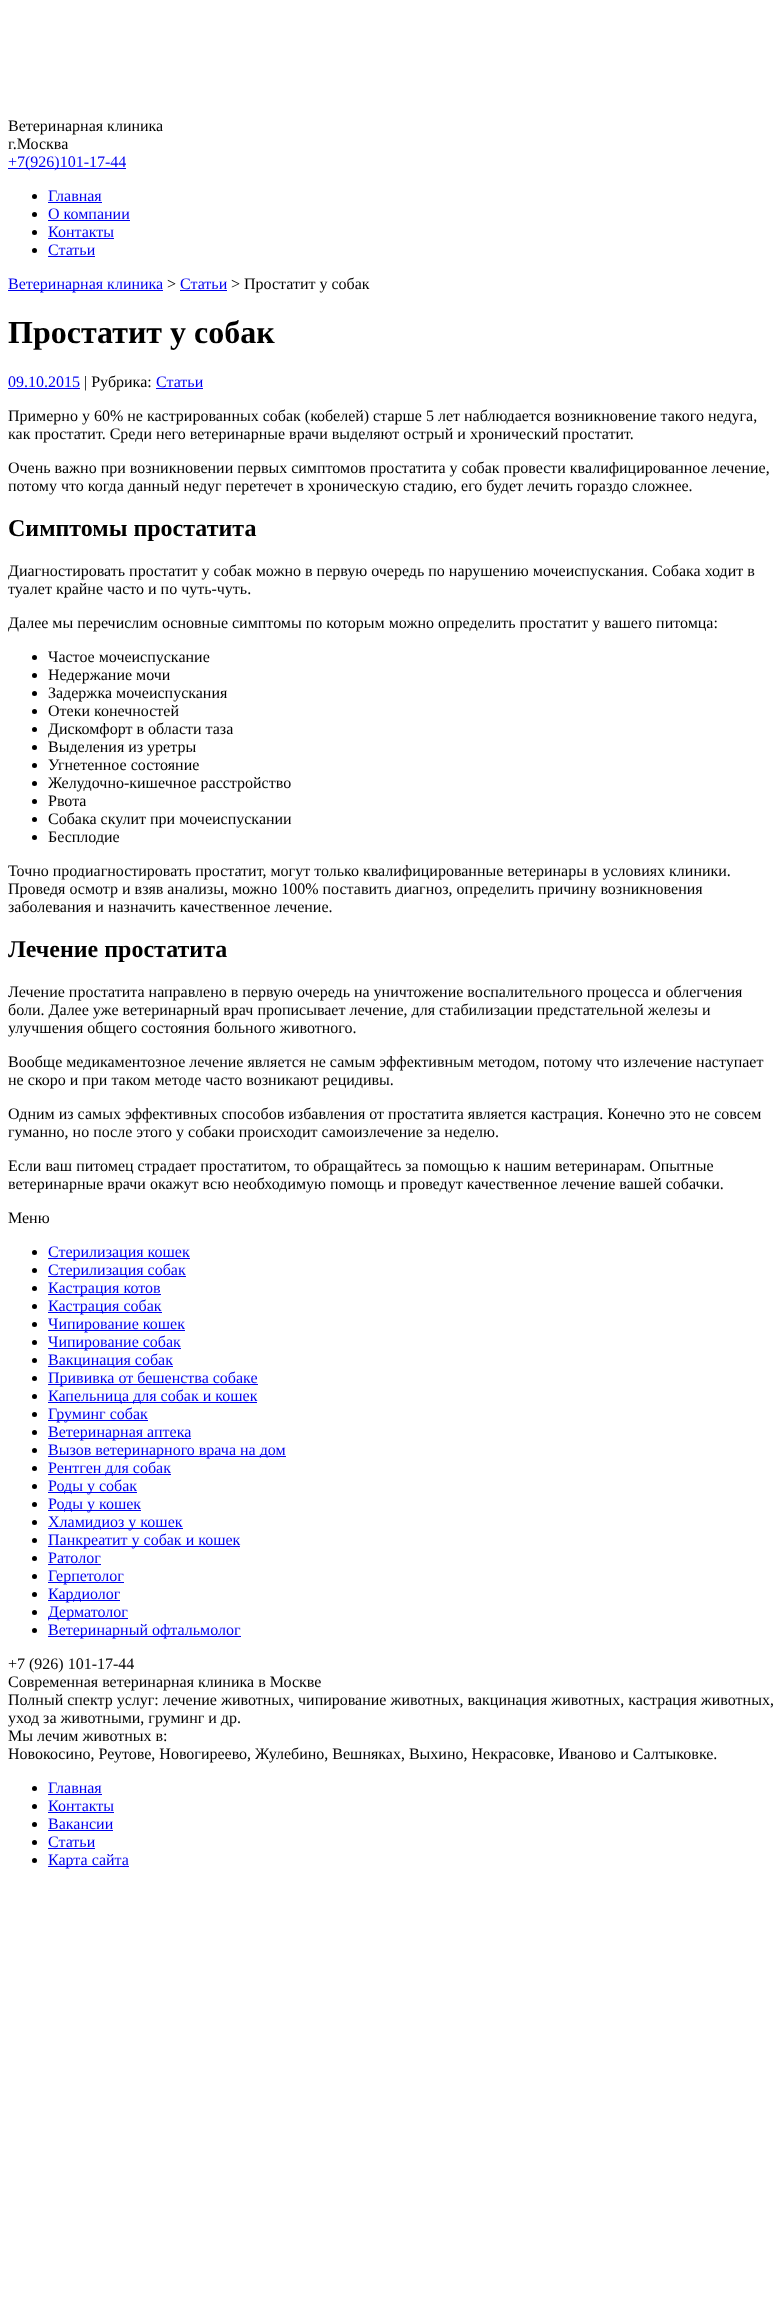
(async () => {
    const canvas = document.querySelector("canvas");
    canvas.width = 782;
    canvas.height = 2314;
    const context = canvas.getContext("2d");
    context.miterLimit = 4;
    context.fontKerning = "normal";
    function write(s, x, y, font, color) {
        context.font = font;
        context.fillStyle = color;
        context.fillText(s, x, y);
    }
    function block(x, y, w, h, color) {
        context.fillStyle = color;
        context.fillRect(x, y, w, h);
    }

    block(0, 0, 782, 2314, "rgb(255, 255, 255)");
    write("Ветеринарная клиника", 8, 131, "16px Liberation Serif", "rgb(0, 0, 0)");
    write("г.Москва", 8, 149, "16px Liberation Serif", "rgb(0, 0, 0)");
    block(8, 168, 118, 1, "rgb(0, 0, 238)");
    write("+7(926)101-17-44", 8, 167, "16px Liberation Serif", "rgb(0, 0, 238)");
    context.fillStyle = "rgb(0, 0, 0)";
    context.beginPath();
    context.arc(34.5, 196.5, 2.5, 0, Math.PI * 2);
    context.fill();
    write("Главная", 48, 201, "16px Liberation Serif", "rgb(0, 0, 238)");
    block(48, 202, 54, 1, "rgb(0, 0, 238)");
    context.fillStyle = "rgb(0, 0, 0)";
    context.beginPath();
    context.arc(34.5, 214.5, 2.5, 0, Math.PI * 2);
    context.fill();
    write("О компании", 48, 219, "16px Liberation Serif", "rgb(0, 0, 238)");
    block(48, 220, 82, 1, "rgb(0, 0, 238)");
    context.fillStyle = "rgb(0, 0, 0)";
    context.beginPath();
    context.arc(34.5, 232.5, 2.5, 0, Math.PI * 2);
    context.fill();
    write("Контакты", 48, 237, "16px Liberation Serif", "rgb(0, 0, 238)");
    block(48, 238, 66, 1, "rgb(0, 0, 238)");
    context.fillStyle = "rgb(0, 0, 0)";
    context.beginPath();
    context.arc(34.5, 250.5, 2.5, 0, Math.PI * 2);
    context.fill();
    write("Статьи", 48, 255, "16px Liberation Serif", "rgb(0, 0, 238)");
    block(48, 256, 47, 1, "rgb(0, 0, 238)");
    block(8, 290, 155, 1, "rgb(0, 0, 238)");
    write("Ветеринарная клиника", 8, 289, "16px Liberation Serif", "rgb(0, 0, 238)");
    write(">", 167, 289, "16px Liberation Serif", "rgb(0, 0, 0)");
    write("Статьи", 180, 289, "16px Liberation Serif", "rgb(0, 0, 238)");
    block(180, 290, 47, 1, "rgb(0, 0, 238)");
    write("> Простатит у собак", 231, 289, "16px Liberation Serif", "rgb(0, 0, 0)");
    write("Простатит у собак", 8, 343, "bold 32px Liberation Serif", "rgb(0, 0, 0)");
    write("09.10.2015", 8, 387, "16px Liberation Serif", "rgb(0, 0, 238)");
    block(8, 388, 72, 1, "rgb(0, 0, 238)");
    write("| Рубрика:", 84, 387, "16px Liberation Serif", "rgb(0, 0, 0)");
    write("Статьи", 156, 387, "16px Liberation Serif", "rgb(0, 0, 238)");
    block(156, 388, 47, 1, "rgb(0, 0, 238)");
    write("Примерно у 60% не кастрированных собак (кобелей) старше 5 лет наблюдается возникновение такого недуга,", 8, 421, "16px Liberation Serif", "rgb(0, 0, 0)");
    write("как простатит. Среди него ветеринарные врачи выделяют острый и хронический простатит.", 8, 439, "16px Liberation Serif", "rgb(0, 0, 0)");
    write("Очень важно при возникновении первых симптомов простатита у собак провести квалифицированное лечение,", 8, 473, "16px Liberation Serif", "rgb(0, 0, 0)");
    write("потому что когда данный недуг перетечет в хроническую стадию, его будет лечить гораздо сложнее.", 8, 491, "16px Liberation Serif", "rgb(0, 0, 0)");
    write("Симптомы простатита", 8, 536, "bold 24px Liberation Serif", "rgb(0, 0, 0)");
    write("Диагностировать простатит у собак можно в первую очередь по нарушению мочеиспускания. Собака ходит в", 8, 576, "16px Liberation Serif", "rgb(0, 0, 0)");
    write("туалет крайне часто и по чуть-чуть.", 8, 594, "16px Liberation Serif", "rgb(0, 0, 0)");
    write("Далее мы перечислим основные симптомы по которым можно определить простатит у вашего питомца:", 8, 628, "16px Liberation Serif", "rgb(0, 0, 0)");
    context.beginPath();
    context.arc(34.5, 657.5, 2.5, 0, Math.PI * 2);
    context.fill();
    write("Частое мочеиспускание", 48, 662, "16px Liberation Serif", "rgb(0, 0, 0)");
    context.beginPath();
    context.arc(34.5, 675.5, 2.5, 0, Math.PI * 2);
    context.fill();
    write("Недержание мочи", 48, 680, "16px Liberation Serif", "rgb(0, 0, 0)");
    context.beginPath();
    context.arc(34.5, 693.5, 2.5, 0, Math.PI * 2);
    context.fill();
    write("Задержка мочеиспускания", 48, 698, "16px Liberation Serif", "rgb(0, 0, 0)");
    context.beginPath();
    context.arc(34.5, 711.5, 2.5, 0, Math.PI * 2);
    context.fill();
    write("Отеки конечностей", 48, 716, "16px Liberation Serif", "rgb(0, 0, 0)");
    context.beginPath();
    context.arc(34.5, 729.5, 2.5, 0, Math.PI * 2);
    context.fill();
    write("Дискомфорт в области таза", 48, 734, "16px Liberation Serif", "rgb(0, 0, 0)");
    context.beginPath();
    context.arc(34.5, 747.5, 2.5, 0, Math.PI * 2);
    context.fill();
    write("Выделения из уретры", 48, 752, "16px Liberation Serif", "rgb(0, 0, 0)");
    context.beginPath();
    context.arc(34.5, 765.5, 2.5, 0, Math.PI * 2);
    context.fill();
    write("Угнетенное состояние", 48, 770, "16px Liberation Serif", "rgb(0, 0, 0)");
    context.beginPath();
    context.arc(34.5, 783.5, 2.5, 0, Math.PI * 2);
    context.fill();
    write("Желудочно-кишечное расстройство", 48, 788, "16px Liberation Serif", "rgb(0, 0, 0)");
    context.beginPath();
    context.arc(34.5, 801.5, 2.5, 0, Math.PI * 2);
    context.fill();
    write("Рвота", 48, 806, "16px Liberation Serif", "rgb(0, 0, 0)");
    context.beginPath();
    context.arc(34.5, 819.5, 2.5, 0, Math.PI * 2);
    context.fill();
    write("Собака скулит при мочеиспускании", 48, 824, "16px Liberation Serif", "rgb(0, 0, 0)");
    context.beginPath();
    context.arc(34.5, 837.5, 2.5, 0, Math.PI * 2);
    context.fill();
    write("Бесплодие", 48, 842, "16px Liberation Serif", "rgb(0, 0, 0)");
    write("Точно продиагностировать простатит, могут только квалифицированные ветеринары в условиях клиники.", 8, 876, "16px Liberation Serif", "rgb(0, 0, 0)");
    write("Проведя осмотр и взяв анализы, можно 100% поставить диагноз, определить причину возникновения", 8, 894, "16px Liberation Serif", "rgb(0, 0, 0)");
    write("заболевания и назначить качественное лечение.", 8, 912, "16px Liberation Serif", "rgb(0, 0, 0)");
    write("Лечение простатита", 8, 957, "bold 24px Liberation Serif", "rgb(0, 0, 0)");
    write("Лечение простатита направлено в первую очередь на уничтожение воспалительного процесса и облегчения", 8, 997, "16px Liberation Serif", "rgb(0, 0, 0)");
    write("боли. Далее уже ветеринарный врач прописывает лечение, для стабилизации предстательной железы и", 8, 1015, "16px Liberation Serif", "rgb(0, 0, 0)");
    write("улучшения общего состояния больного животного.", 8, 1033, "16px Liberation Serif", "rgb(0, 0, 0)");
    write("Вообще медикаментозное лечение является не самым эффективным методом, потому что излечение наступает", 8, 1067, "16px Liberation Serif", "rgb(0, 0, 0)");
    write("не скоро и при таком методе часто возникают рецидивы.", 8, 1085, "16px Liberation Serif", "rgb(0, 0, 0)");
    write("Одним из самых эффективных способов избавления от простатита является кастрация. Конечно это не совсем", 8, 1119, "16px Liberation Serif", "rgb(0, 0, 0)");
    write("гуманно, но после этого у собаки происходит самоизлечение за неделю.", 8, 1137, "16px Liberation Serif", "rgb(0, 0, 0)");
    write("Если ваш питомец страдает простатитом, то обращайтесь за помощью к нашим ветеринарам. Опытные", 8, 1171, "16px Liberation Serif", "rgb(0, 0, 0)");
    write("ветеринарные врачи окажут всю необходимую помощь и проведут качественное лечение вашей собачки.", 8, 1189, "16px Liberation Serif", "rgb(0, 0, 0)");
    write("Меню", 8, 1223, "16px Liberation Serif", "rgb(0, 0, 0)");
    context.beginPath();
    context.arc(34.5, 1252.5, 2.5, 0, Math.PI * 2);
    context.fill();
    block(48, 1258, 142, 1, "rgb(0, 0, 238)");
    write("Стерилизация кошек", 48, 1257, "16px Liberation Serif", "rgb(0, 0, 238)");
    context.fillStyle = "rgb(0, 0, 0)";
    context.beginPath();
    context.arc(34.5, 1270.5, 2.5, 0, Math.PI * 2);
    context.fill();
    block(48, 1276, 138, 1, "rgb(0, 0, 238)");
    write("Стерилизация собак", 48, 1275, "16px Liberation Serif", "rgb(0, 0, 238)");
    context.fillStyle = "rgb(0, 0, 0)";
    context.beginPath();
    context.arc(34.5, 1288.5, 2.5, 0, Math.PI * 2);
    context.fill();
    block(48, 1294, 113, 1, "rgb(0, 0, 238)");
    write("Кастрация котов", 48, 1293, "16px Liberation Serif", "rgb(0, 0, 238)");
    context.fillStyle = "rgb(0, 0, 0)";
    context.beginPath();
    context.arc(34.5, 1306.5, 2.5, 0, Math.PI * 2);
    context.fill();
    block(48, 1312, 114, 1, "rgb(0, 0, 238)");
    write("Кастрация собак", 48, 1311, "16px Liberation Serif", "rgb(0, 0, 238)");
    context.fillStyle = "rgb(0, 0, 0)";
    context.beginPath();
    context.arc(34.5, 1324.5, 2.5, 0, Math.PI * 2);
    context.fill();
    block(48, 1330, 137, 1, "rgb(0, 0, 238)");
    write("Чипирование кошек", 48, 1329, "16px Liberation Serif", "rgb(0, 0, 238)");
    context.fillStyle = "rgb(0, 0, 0)";
    context.beginPath();
    context.arc(34.5, 1342.5, 2.5, 0, Math.PI * 2);
    context.fill();
    block(48, 1348, 133, 1, "rgb(0, 0, 238)");
    write("Чипирование собак", 48, 1347, "16px Liberation Serif", "rgb(0, 0, 238)");
    context.fillStyle = "rgb(0, 0, 0)";
    context.beginPath();
    context.arc(34.5, 1360.5, 2.5, 0, Math.PI * 2);
    context.fill();
    block(48, 1366, 125, 1, "rgb(0, 0, 238)");
    write("Вакцинация собак", 48, 1365, "16px Liberation Serif", "rgb(0, 0, 238)");
    context.fillStyle = "rgb(0, 0, 0)";
    context.beginPath();
    context.arc(34.5, 1378.5, 2.5, 0, Math.PI * 2);
    context.fill();
    block(48, 1384, 210, 1, "rgb(0, 0, 238)");
    write("Прививка от бешенства собаке", 48, 1383, "16px Liberation Serif", "rgb(0, 0, 238)");
    context.fillStyle = "rgb(0, 0, 0)";
    context.beginPath();
    context.arc(34.5, 1396.5, 2.5, 0, Math.PI * 2);
    context.fill();
    block(48, 1402, 209, 1, "rgb(0, 0, 238)");
    write("Капельница для собак и кошек", 48, 1401, "16px Liberation Serif", "rgb(0, 0, 238)");
    context.fillStyle = "rgb(0, 0, 0)";
    context.beginPath();
    context.arc(34.5, 1414.5, 2.5, 0, Math.PI * 2);
    context.fill();
    block(48, 1420, 100, 1, "rgb(0, 0, 238)");
    write("Груминг собак", 48, 1419, "16px Liberation Serif", "rgb(0, 0, 238)");
    context.fillStyle = "rgb(0, 0, 0)";
    context.beginPath();
    context.arc(34.5, 1432.5, 2.5, 0, Math.PI * 2);
    context.fill();
    block(48, 1438, 143, 1, "rgb(0, 0, 238)");
    write("Ветеринарная аптека", 48, 1437, "16px Liberation Serif", "rgb(0, 0, 238)");
    context.fillStyle = "rgb(0, 0, 0)";
    context.beginPath();
    context.arc(34.5, 1450.5, 2.5, 0, Math.PI * 2);
    context.fill();
    block(48, 1456, 238, 1, "rgb(0, 0, 238)");
    write("Вызов ветеринарного врача на дом", 48, 1455, "16px Liberation Serif", "rgb(0, 0, 238)");
    context.fillStyle = "rgb(0, 0, 0)";
    context.beginPath();
    context.arc(34.5, 1468.5, 2.5, 0, Math.PI * 2);
    context.fill();
    block(48, 1474, 123, 1, "rgb(0, 0, 238)");
    write("Рентген для собак", 48, 1473, "16px Liberation Serif", "rgb(0, 0, 238)");
    context.fillStyle = "rgb(0, 0, 0)";
    context.beginPath();
    context.arc(34.5, 1486.5, 2.5, 0, Math.PI * 2);
    context.fill();
    block(48, 1492, 89, 1, "rgb(0, 0, 238)");
    write("Роды у собак", 48, 1491, "16px Liberation Serif", "rgb(0, 0, 238)");
    context.fillStyle = "rgb(0, 0, 0)";
    context.beginPath();
    context.arc(34.5, 1504.5, 2.5, 0, Math.PI * 2);
    context.fill();
    block(48, 1510, 93, 1, "rgb(0, 0, 238)");
    write("Роды у кошек", 48, 1509, "16px Liberation Serif", "rgb(0, 0, 238)");
    context.fillStyle = "rgb(0, 0, 0)";
    context.beginPath();
    context.arc(34.5, 1522.5, 2.5, 0, Math.PI * 2);
    context.fill();
    block(48, 1528, 135, 1, "rgb(0, 0, 238)");
    write("Хламидиоз у кошек", 48, 1527, "16px Liberation Serif", "rgb(0, 0, 238)");
    context.fillStyle = "rgb(0, 0, 0)";
    context.beginPath();
    context.arc(34.5, 1540.5, 2.5, 0, Math.PI * 2);
    context.fill();
    block(48, 1546, 192, 1, "rgb(0, 0, 238)");
    write("Панкреатит у собак и кошек", 48, 1545, "16px Liberation Serif", "rgb(0, 0, 238)");
    context.fillStyle = "rgb(0, 0, 0)";
    context.beginPath();
    context.arc(34.5, 1558.5, 2.5, 0, Math.PI * 2);
    context.fill();
    write("Ратолог", 48, 1563, "16px Liberation Serif", "rgb(0, 0, 238)");
    block(48, 1564, 53, 1, "rgb(0, 0, 238)");
    context.fillStyle = "rgb(0, 0, 0)";
    context.beginPath();
    context.arc(34.5, 1576.5, 2.5, 0, Math.PI * 2);
    context.fill();
    block(48, 1582, 76, 1, "rgb(0, 0, 238)");
    write("Герпетолог", 48, 1581, "16px Liberation Serif", "rgb(0, 0, 238)");
    context.fillStyle = "rgb(0, 0, 0)";
    context.beginPath();
    context.arc(34.5, 1594.5, 2.5, 0, Math.PI * 2);
    context.fill();
    block(48, 1600, 72, 1, "rgb(0, 0, 238)");
    write("Кардиолог", 48, 1599, "16px Liberation Serif", "rgb(0, 0, 238)");
    context.fillStyle = "rgb(0, 0, 0)";
    context.beginPath();
    context.arc(34.5, 1612.5, 2.5, 0, Math.PI * 2);
    context.fill();
    block(48, 1618, 80, 1, "rgb(0, 0, 238)");
    write("Дерматолог", 48, 1617, "16px Liberation Serif", "rgb(0, 0, 238)");
    context.fillStyle = "rgb(0, 0, 0)";
    context.beginPath();
    context.arc(34.5, 1630.5, 2.5, 0, Math.PI * 2);
    context.fill();
    block(48, 1636, 193, 1, "rgb(0, 0, 238)");
    write("Ветеринарный офтальмолог", 48, 1635, "16px Liberation Serif", "rgb(0, 0, 238)");
    write("+7 (926) 101-17-44", 8, 1669, "16px Liberation Serif", "rgb(0, 0, 0)");
    write("Современная ветеринарная клиника в Москве", 8, 1687, "16px Liberation Serif", "rgb(0, 0, 0)");
    write("Полный спектр услуг: лечение животных, чипирование животных, вакцинация животных, кастрация животных,", 8, 1705, "16px Liberation Serif", "rgb(0, 0, 0)");
    write("уход за животными, груминг и др.", 8, 1723, "16px Liberation Serif", "rgb(0, 0, 0)");
    write("Мы лечим животных в:", 8, 1741, "16px Liberation Serif", "rgb(0, 0, 0)");
    write("Новокосино, Реутове, Новогиреево, Жулебино, Вешняках, Выхино, Некрасовке, Иваново и Салтыковке.", 8, 1759, "16px Liberation Serif", "rgb(0, 0, 0)");
    context.beginPath();
    context.arc(34.5, 1788.5, 2.5, 0, Math.PI * 2);
    context.fill();
    write("Главная", 48, 1793, "16px Liberation Serif", "rgb(0, 0, 238)");
    block(48, 1794, 54, 1, "rgb(0, 0, 238)");
    context.fillStyle = "rgb(0, 0, 0)";
    context.beginPath();
    context.arc(34.5, 1806.5, 2.5, 0, Math.PI * 2);
    context.fill();
    write("Контакты", 48, 1811, "16px Liberation Serif", "rgb(0, 0, 238)");
    block(48, 1812, 66, 1, "rgb(0, 0, 238)");
    context.fillStyle = "rgb(0, 0, 0)";
    context.beginPath();
    context.arc(34.5, 1824.5, 2.5, 0, Math.PI * 2);
    context.fill();
    write("Вакансии", 48, 1829, "16px Liberation Serif", "rgb(0, 0, 238)");
    block(48, 1830, 65, 1, "rgb(0, 0, 238)");
    context.fillStyle = "rgb(0, 0, 0)";
    context.beginPath();
    context.arc(34.5, 1842.5, 2.5, 0, Math.PI * 2);
    context.fill();
    write("Статьи", 48, 1847, "16px Liberation Serif", "rgb(0, 0, 238)");
    block(48, 1848, 47, 1, "rgb(0, 0, 238)");
    context.fillStyle = "rgb(0, 0, 0)";
    context.beginPath();
    context.arc(34.5, 1860.5, 2.5, 0, Math.PI * 2);
    context.fill();
    block(48, 1866, 81, 1, "rgb(0, 0, 238)");
    write("Карта сайта", 48, 1865, "16px Liberation Serif", "rgb(0, 0, 238)");
})();
